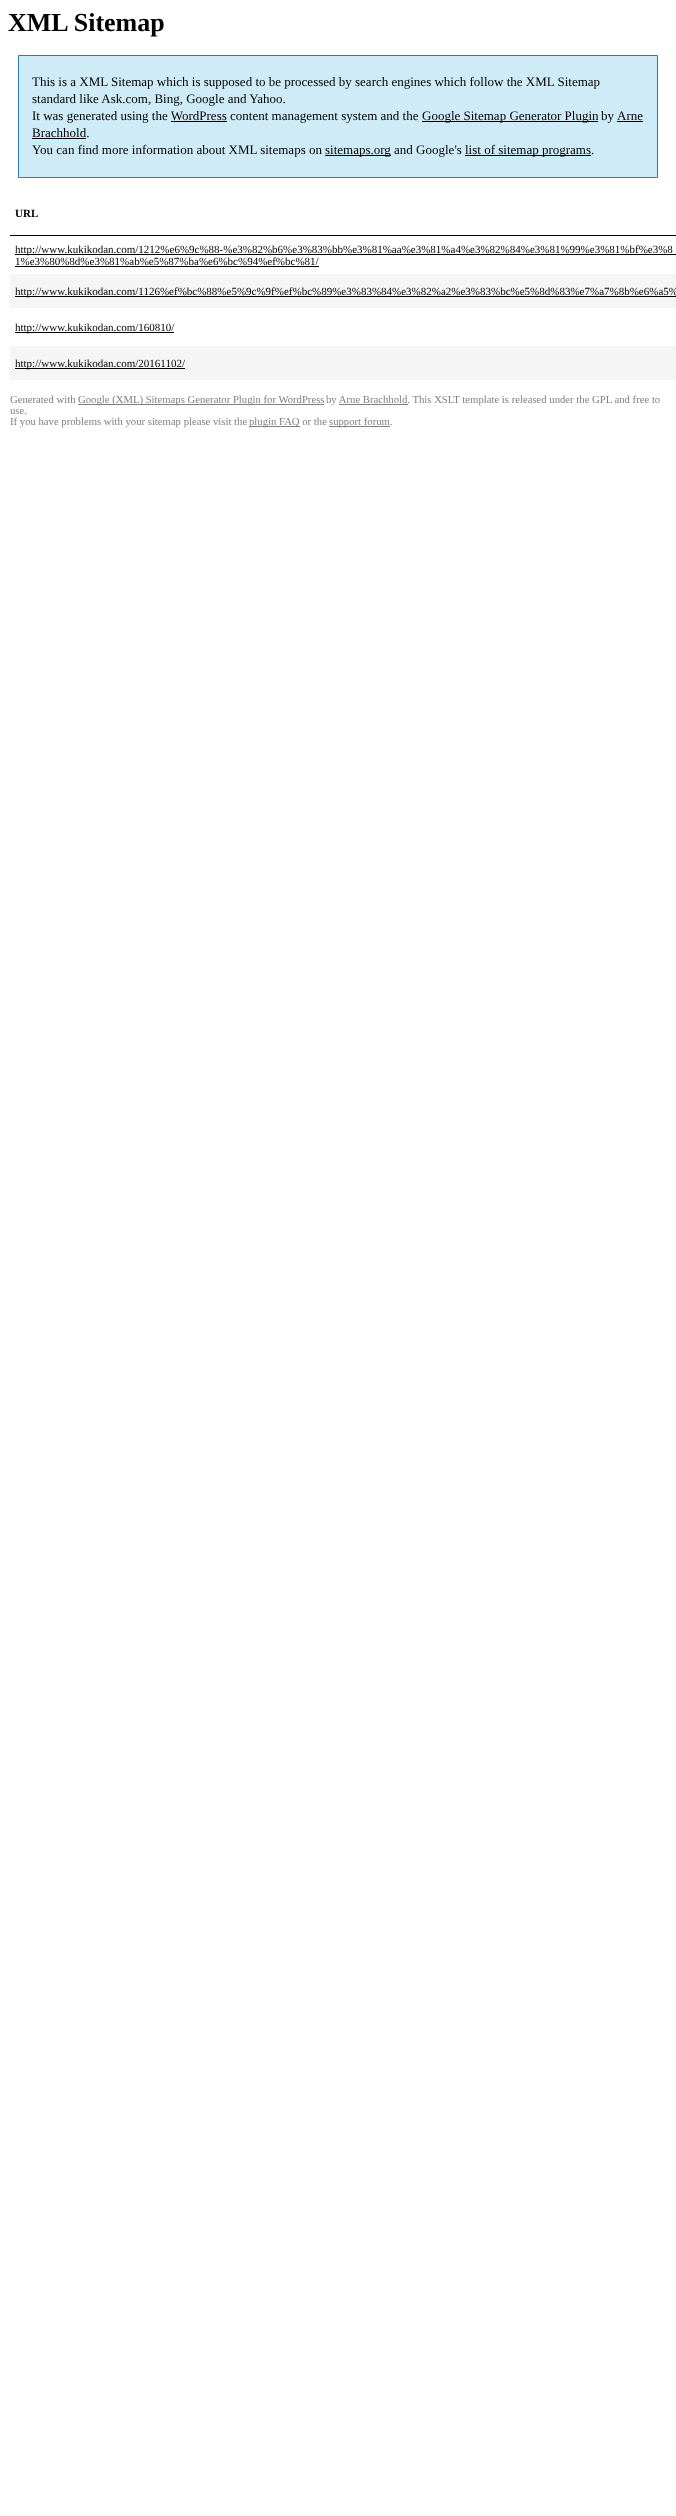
(async () => {
    const canvas = document.querySelector("canvas");
    canvas.width = 676;
    canvas.height = 2516;
    const context = canvas.getContext("2d");
    context.miterLimit = 4;
    context.fontKerning = "normal";
    function write(s, x, y, font, color) {
        context.font = font;
        context.fillStyle = color;
        context.fillText(s, x, y);
    }
    function block(x, y, w, h, color) {
        context.fillStyle = color;
        context.fillRect(x, y, w, h);
    }

    block(0, 0, 676, 2516, "rgb(255, 255, 255)");
    write("XML Sitemap", 8, 31, "bold 26px Liberation Serif", "rgb(0, 0, 0)");
    context.fillStyle = "rgb(207, 235, 247)";
    context.beginPath();
    context.rect(18.5, 55.5, 639, 122);
    context.fill();
    context.strokeStyle = "rgb(37, 128, 178)";
    context.stroke();
    write("This is a XML Sitemap which is supposed to be processed by search engines which follow the XML Sitemap", 32, 86, "13px Liberation Serif", "rgb(0, 0, 0)");
    write("standard like Ask.com, Bing, Google and Yahoo.", 32, 103, "13px Liberation Serif", "rgb(0, 0, 0)");
    write("It was generated using the WordPress content management system and the", 32, 120, "13px Liberation Serif", "rgb(0, 0, 0)");
    block(422, 121, 176, 1, "rgb(0, 0, 0)");
    write("Google Sitemap Generator Plugin", 422, 120, "13px Liberation Serif", "rgb(0, 0, 0)");
    write("by", 601, 120, "13px Liberation Serif", "rgb(0, 0, 0)");
    write("Arne", 617, 120, "13px Liberation Serif", "rgb(0, 0, 0)");
    block(617, 121, 26, 1, "rgb(0, 0, 0)");
    block(171, 121, 56, 1, "rgb(0, 0, 0)");
    write("Brachhold.", 32, 137, "13px Liberation Serif", "rgb(0, 0, 0)");
    block(32, 138, 54, 1, "rgb(0, 0, 0)");
    write("You can find more information about XML sitemaps on", 32, 154, "13px Liberation Serif", "rgb(0, 0, 0)");
    block(325, 155, 66, 1, "rgb(0, 0, 0)");
    write("sitemaps.org and Google's", 325, 154, "13px Liberation Serif", "rgb(0, 0, 0)");
    block(465, 155, 126, 1, "rgb(0, 0, 0)");
    write("list of sitemap programs.", 465, 154, "13px Liberation Serif", "rgb(0, 0, 0)");
    block(10, 235, 666, 1, "rgb(0, 0, 0)");
    write("URL", 15, 217, "bold 11px Liberation Serif", "rgb(0, 0, 0)");
    block(15, 254, 661, 1, "rgb(0, 0, 0)");
    write("http://www.kukikodan.com/1212%e6%9c%88-%e3%82%b6%e3%83%bb%e3%81%aa%e3%81%a4%e3%82%84%e3%81%99%e3%81%bf%e3%8", 15, 253, "11px Liberation Serif", "rgb(0, 0, 0)");
    write("1%e3%80%8d%e3%81%ab%e5%87%ba%e6%bc%94%ef%bc%81/", 15, 265, "11px Liberation Serif", "rgb(0, 0, 0)");
    block(15, 266, 304, 1, "rgb(0, 0, 0)");
    block(10, 274, 666, 34, "rgb(245, 245, 245)");
    block(15, 296, 661, 1, "rgb(0, 0, 0)");
    write("http://www.kukikodan.com/1126%ef%bc%88%e5%9c%9f%ef%bc%89%e3%83%84%e3%82%a2%e3%83%bc%e5%8d%83%e7%a7%8b%e6%a5%", 15, 295, "11px Liberation Serif", "rgb(0, 0, 0)");
    block(15, 332, 159, 1, "rgb(0, 0, 0)");
    write("http://www.kukikodan.com/160810/", 15, 331, "11px Liberation Serif", "rgb(0, 0, 0)");
    block(10, 346, 666, 34, "rgb(245, 245, 245)");
    block(15, 368, 170, 1, "rgb(0, 0, 0)");
    write("http://www.kukikodan.com/20161102/", 15, 367, "11px Liberation Serif", "rgb(0, 0, 0)");
    write("Generated with", 10, 403, "10.7px Liberation Serif", "rgb(128, 128, 128)");
    block(78, 404, 246, 1, "rgb(128, 128, 128)");
    write("Google (XML) Sitemaps Generator Plugin for WordPress", 78, 403, "10.7px Liberation Serif", "rgb(128, 128, 128)");
    write("by Arne Brachhold. This XSLT template is released under the GPL and free to", 326, 403, "10.7px Liberation Serif", "rgb(128, 128, 128)");
    block(339, 404, 69, 1, "rgb(128, 128, 128)");
    write("use.", 10, 414, "10.7px Liberation Serif", "rgb(128, 128, 128)");
    write("If you have problems with your sitemap please visit the", 10, 425, "10.7px Liberation Serif", "rgb(128, 128, 128)");
    block(249, 426, 51, 1, "rgb(128, 128, 128)");
    write("plugin FAQ or the", 249, 425, "10.7px Liberation Serif", "rgb(128, 128, 128)");
    block(329, 426, 61, 1, "rgb(128, 128, 128)");
    write("support forum.", 329, 425, "10.7px Liberation Serif", "rgb(128, 128, 128)");
})();
